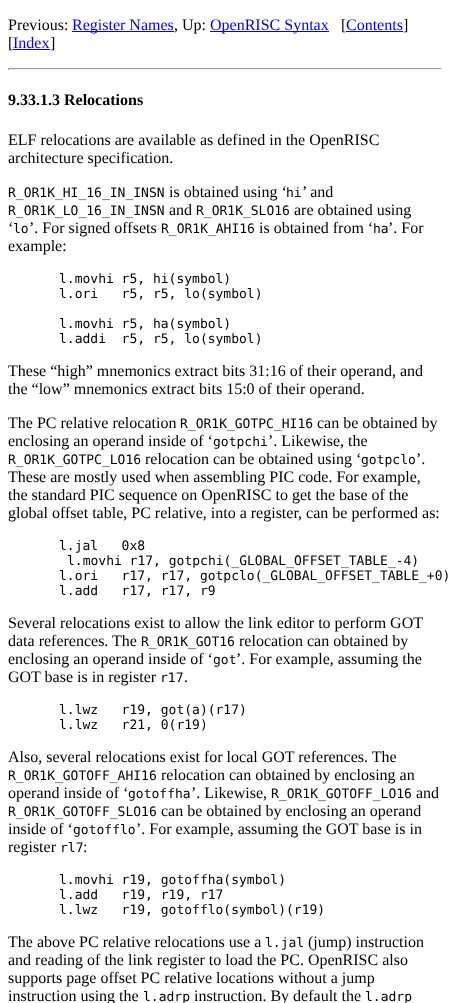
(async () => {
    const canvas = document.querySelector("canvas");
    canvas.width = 450;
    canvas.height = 1003;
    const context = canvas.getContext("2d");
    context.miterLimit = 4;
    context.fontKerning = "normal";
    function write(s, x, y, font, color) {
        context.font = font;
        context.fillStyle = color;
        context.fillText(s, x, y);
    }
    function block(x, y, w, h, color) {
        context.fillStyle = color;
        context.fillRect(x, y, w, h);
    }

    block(0, 0, 450, 1003, "rgb(255, 255, 255)");
    write("Previous:", 8, 30, "16px Liberation Serif", "rgb(0, 0, 0)");
    block(72, 31, 102, 1, "rgb(0, 0, 238)");
    write("Register Names", 72, 30, "16px Liberation Serif", "rgb(0, 0, 238)");
    write(", Up:", 174, 30, "16px Liberation Serif", "rgb(0, 0, 0)");
    block(210, 31, 119, 1, "rgb(0, 0, 238)");
    write("OpenRISC Syntax", 210, 30, "16px Liberation Serif", "rgb(0, 0, 238)");
    write("[", 341, 30, "16px Liberation Serif", "rgb(0, 0, 0)");
    write("Contents", 346, 30, "16px Liberation Serif", "rgb(0, 0, 238)");
    block(346, 31, 57, 1, "rgb(0, 0, 238)");
    write("]", 403, 30, "16px Liberation Serif", "rgb(0, 0, 0)");
    write("[", 8, 48, "16px Liberation Serif", "rgb(0, 0, 0)");
    write("Index", 13, 48, "16px Liberation Serif", "rgb(0, 0, 238)");
    block(13, 49, 37, 1, "rgb(0, 0, 238)");
    write("]", 50, 48, "16px Liberation Serif", "rgb(0, 0, 0)");
    block(8, 68, 434, 1, "rgb(159, 159, 159)");
    block(441, 68, 1, 2, "rgb(238, 238, 238)");
    block(8, 69, 434, 1, "rgb(238, 238, 238)");
    block(8, 68, 1, 2, "rgb(159, 159, 159)");
    write("9.33.1.3 Relocations", 8, 105, "bold 16px Liberation Serif", "rgb(0, 0, 0)");
    write("ELF relocations are available as defined in the OpenRISC", 8, 145, "16px Liberation Serif", "rgb(0, 0, 0)");
    write("architecture specification.", 8, 163, "16px Liberation Serif", "rgb(0, 0, 0)");
    write("R_OR1K_HI_16_IN_INSN", 8, 197, "13px DejaVu Sans Mono", "rgb(0, 0, 0)");
    write("is obtained using ‘", 169, 197, "16px Liberation Serif", "rgb(0, 0, 0)");
    write("hi", 286, 197, "13px DejaVu Sans Mono", "rgb(0, 0, 0)");
    write("’ and", 302, 197, "16px Liberation Serif", "rgb(0, 0, 0)");
    write("R_OR1K_LO_16_IN_INSN", 8, 215, "13px DejaVu Sans Mono", "rgb(0, 0, 0)");
    write("and", 169, 215, "16px Liberation Serif", "rgb(0, 0, 0)");
    write("R_OR1K_SLO16", 196, 215, "13px DejaVu Sans Mono", "rgb(0, 0, 0)");
    write("are obtained using", 294, 215, "16px Liberation Serif", "rgb(0, 0, 0)");
    write("‘", 8, 233, "16px Liberation Serif", "rgb(0, 0, 0)");
    write("lo", 13, 233, "13px DejaVu Sans Mono", "rgb(0, 0, 0)");
    write("’. For signed offsets", 29, 233, "16px Liberation Serif", "rgb(0, 0, 0)");
    write("R_OR1K_AHI16", 161, 233, "13px DejaVu Sans Mono", "rgb(0, 0, 0)");
    write("is obtained from ‘", 259, 233, "16px Liberation Serif", "rgb(0, 0, 0)");
    write("ha", 373, 233, "13px DejaVu Sans Mono", "rgb(0, 0, 0)");
    write("’. For", 388, 233, "16px Liberation Serif", "rgb(0, 0, 0)");
    write("example:", 8, 251, "16px Liberation Serif", "rgb(0, 0, 0)");
    write("l.movhi r5, hi(symbol)", 59, 283, "13px DejaVu Sans Mono", "rgb(0, 0, 0)");
    write("l.ori   r5, r5, lo(symbol)", 59, 298, "13px DejaVu Sans Mono", "rgb(0, 0, 0)");
    write("l.movhi r5, ha(symbol)", 59, 328, "13px DejaVu Sans Mono", "rgb(0, 0, 0)");
    write("l.addi  r5, r5, lo(symbol)", 59, 343, "13px DejaVu Sans Mono", "rgb(0, 0, 0)");
    write("These “high” mnemonics extract bits 31:16 of their operand, and", 8, 376, "16px Liberation Serif", "rgb(0, 0, 0)");
    write("the “low” mnemonics extract bits 15:0 of their operand.", 8, 394, "16px Liberation Serif", "rgb(0, 0, 0)");
    write("The PC relative relocation", 8, 428, "16px Liberation Serif", "rgb(0, 0, 0)");
    write("R_OR1K_GOTPC_HI16", 180, 428, "13px DejaVu Sans Mono", "rgb(0, 0, 0)");
    write("can be obtained by", 317, 428, "16px Liberation Serif", "rgb(0, 0, 0)");
    write("enclosing an operand inside of ‘", 8, 446, "16px Liberation Serif", "rgb(0, 0, 0)");
    write("gotpchi", 213, 446, "13px DejaVu Sans Mono", "rgb(0, 0, 0)");
    write("’. Likewise, the", 268, 446, "16px Liberation Serif", "rgb(0, 0, 0)");
    write("R_OR1K_GOTPC_LO16", 8, 464, "13px DejaVu Sans Mono", "rgb(0, 0, 0)");
    write("relocation can be obtained using ‘", 145, 464, "16px Liberation Serif", "rgb(0, 0, 0)");
    write("gotpclo", 361, 464, "13px DejaVu Sans Mono", "rgb(0, 0, 0)");
    write("’.", 416, 464, "16px Liberation Serif", "rgb(0, 0, 0)");
    write("These are mostly used when assembling PIC code. For example,", 8, 482, "16px Liberation Serif", "rgb(0, 0, 0)");
    write("the standard PIC sequence on OpenRISC to get the base of the", 8, 500, "16px Liberation Serif", "rgb(0, 0, 0)");
    write("global offset table, PC relative, into a register, can be performed as:", 8, 518, "16px Liberation Serif", "rgb(0, 0, 0)");
    write("l.jal   0x8", 59, 550, "13px DejaVu Sans Mono", "rgb(0, 0, 0)");
    write("l.movhi r17, gotpchi(_GLOBAL_OFFSET_TABLE_-4)", 67, 565, "13px DejaVu Sans Mono", "rgb(0, 0, 0)");
    write("l.ori   r17, r17, gotpclo(_GLOBAL_OFFSET_TABLE_+0)", 59, 580, "13px DejaVu Sans Mono", "rgb(0, 0, 0)");
    write("l.add   r17, r17, r9", 59, 595, "13px DejaVu Sans Mono", "rgb(0, 0, 0)");
    write("Several relocations exist to allow the link editor to perform GOT", 8, 628, "16px Liberation Serif", "rgb(0, 0, 0)");
    write("data references. The", 8, 646, "16px Liberation Serif", "rgb(0, 0, 0)");
    write("R_OR1K_GOT16", 141, 646, "13px DejaVu Sans Mono", "rgb(0, 0, 0)");
    write("relocation can obtained by", 239, 646, "16px Liberation Serif", "rgb(0, 0, 0)");
    write("enclosing an operand inside of ‘", 8, 664, "16px Liberation Serif", "rgb(0, 0, 0)");
    write("got", 213, 664, "13px DejaVu Sans Mono", "rgb(0, 0, 0)");
    write("’. For example, assuming the", 236, 664, "16px Liberation Serif", "rgb(0, 0, 0)");
    write("GOT base is in register", 8, 682, "16px Liberation Serif", "rgb(0, 0, 0)");
    write("r17", 160, 682, "13px DejaVu Sans Mono", "rgb(0, 0, 0)");
    write(".", 184, 682, "16px Liberation Serif", "rgb(0, 0, 0)");
    write("l.lwz   r19, got(a)(r17)", 59, 714, "13px DejaVu Sans Mono", "rgb(0, 0, 0)");
    write("l.lwz   r21, 0(r19)", 59, 729, "13px DejaVu Sans Mono", "rgb(0, 0, 0)");
    write("Also, several relocations exist for local GOT references. The", 8, 762, "16px Liberation Serif", "rgb(0, 0, 0)");
    write("R_OR1K_GOTOFF_AHI16", 8, 780, "13px DejaVu Sans Mono", "rgb(0, 0, 0)");
    write("relocation can obtained by enclosing an", 161, 780, "16px Liberation Serif", "rgb(0, 0, 0)");
    write("operand inside of ‘", 8, 798, "16px Liberation Serif", "rgb(0, 0, 0)");
    write("gotoffha", 128, 798, "13px DejaVu Sans Mono", "rgb(0, 0, 0)");
    write("’. Likewise,", 191, 798, "16px Liberation Serif", "rgb(0, 0, 0)");
    write("R_OR1K_GOTOFF_LO16", 271, 798, "13px DejaVu Sans Mono", "rgb(0, 0, 0)");
    write("and", 416, 798, "16px Liberation Serif", "rgb(0, 0, 0)");
    write("R_OR1K_GOTOFF_SLO16", 8, 816, "13px DejaVu Sans Mono", "rgb(0, 0, 0)");
    write("can be obtained by enclosing an operand", 161, 816, "16px Liberation Serif", "rgb(0, 0, 0)");
    write("inside of ‘", 8, 834, "16px Liberation Serif", "rgb(0, 0, 0)");
    write("gotofflo", 73, 834, "13px DejaVu Sans Mono", "rgb(0, 0, 0)");
    write("’. For example, assuming the GOT base is in", 136, 834, "16px Liberation Serif", "rgb(0, 0, 0)");
    write("register", 8, 852, "16px Liberation Serif", "rgb(0, 0, 0)");
    write("rl7", 60, 852, "13px DejaVu Sans Mono", "rgb(0, 0, 0)");
    write(":", 83, 852, "16px Liberation Serif", "rgb(0, 0, 0)");
    write("l.movhi r19, gotoffha(symbol)", 59, 884, "13px DejaVu Sans Mono", "rgb(0, 0, 0)");
    write("l.add   r19, r19, r17", 59, 899, "13px DejaVu Sans Mono", "rgb(0, 0, 0)");
    write("l.lwz   r19, gotofflo(symbol)(r19)", 59, 914, "13px DejaVu Sans Mono", "rgb(0, 0, 0)");
    write("The above PC relative relocations use a", 8, 947, "16px Liberation Serif", "rgb(0, 0, 0)");
    write("l.jal", 265, 947, "13px DejaVu Sans Mono", "rgb(0, 0, 0)");
    write("(jump) instruction", 308, 947, "16px Liberation Serif", "rgb(0, 0, 0)");
    write("and reading of the link register to load the PC. OpenRISC also", 8, 965, "16px Liberation Serif", "rgb(0, 0, 0)");
    write("supports page offset PC relative locations without a jump", 8, 983, "16px Liberation Serif", "rgb(0, 0, 0)");
    write("instruction using the", 8, 1001, "16px Liberation Serif", "rgb(0, 0, 0)");
    write("l.adrp", 143, 1001, "13px DejaVu Sans Mono", "rgb(0, 0, 0)");
    write("instruction. By default the", 194, 1001, "16px Liberation Serif", "rgb(0, 0, 0)");
    write("l.adrp", 365, 1001, "13px DejaVu Sans Mono", "rgb(0, 0, 0)");
})();
